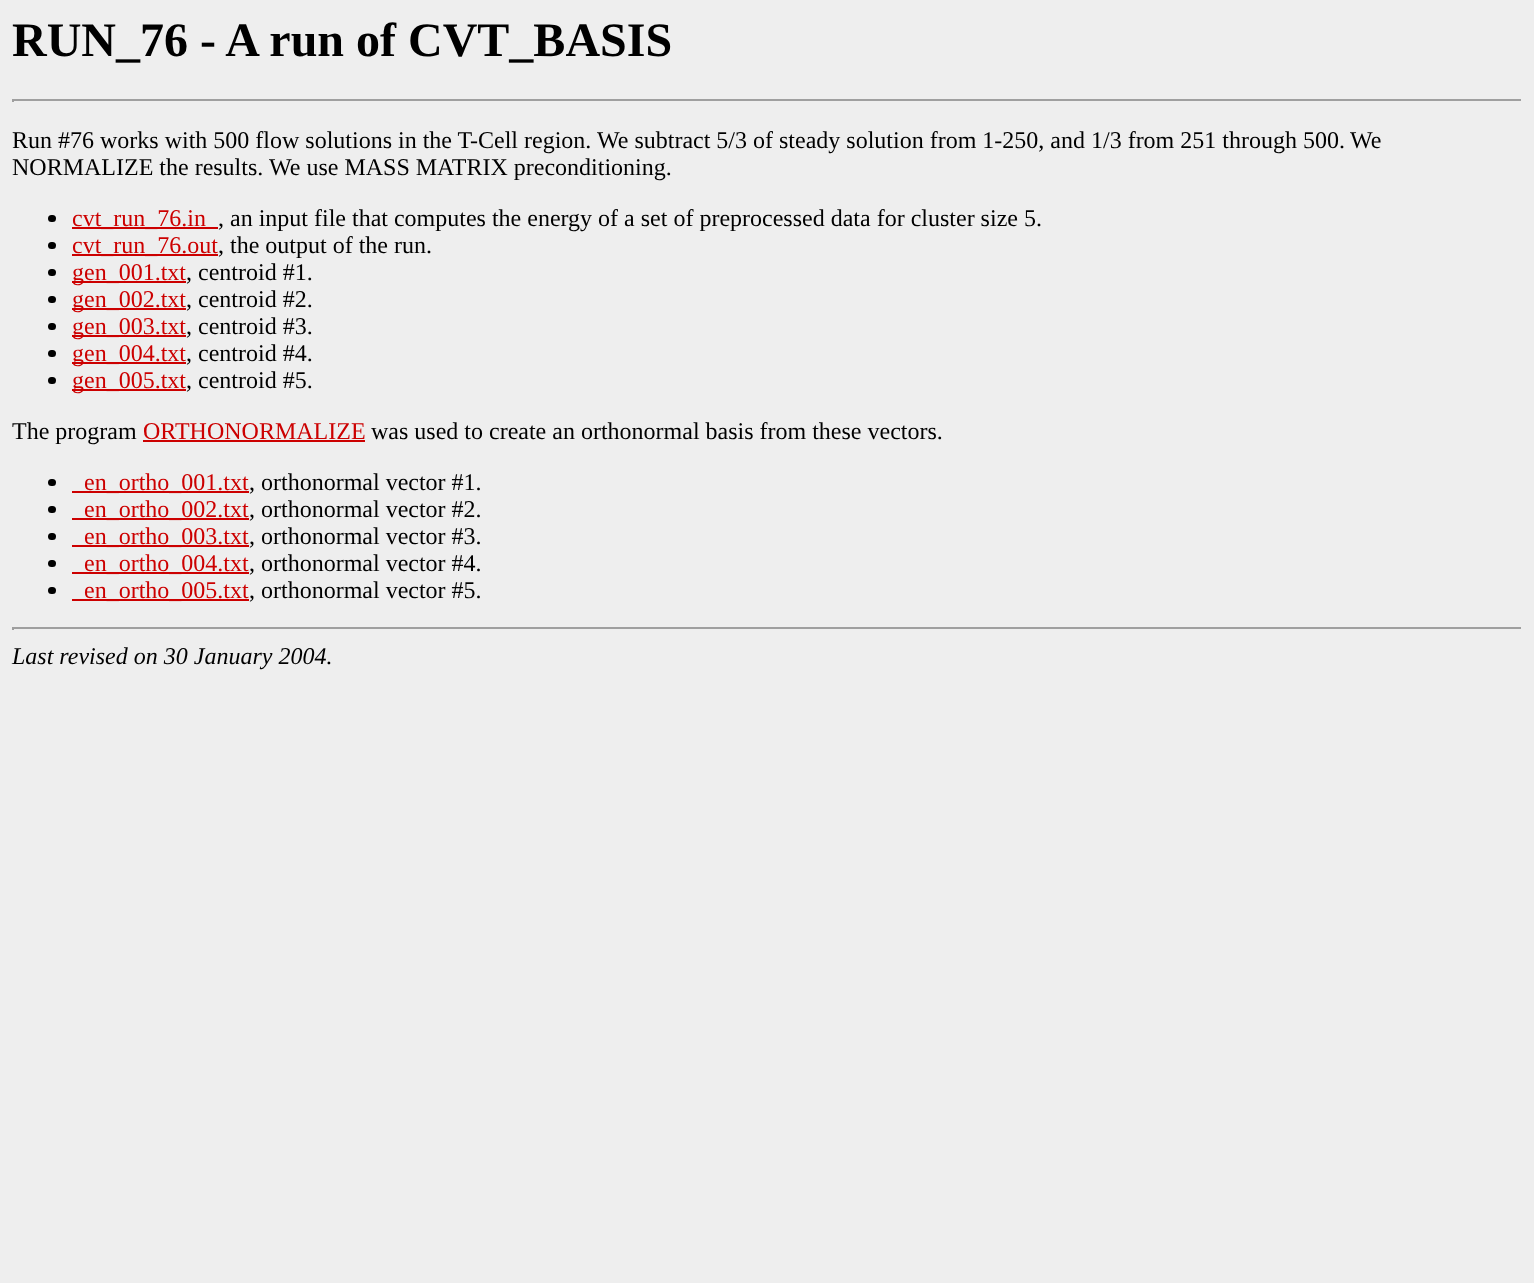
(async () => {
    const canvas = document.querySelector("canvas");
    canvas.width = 1534;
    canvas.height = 1283;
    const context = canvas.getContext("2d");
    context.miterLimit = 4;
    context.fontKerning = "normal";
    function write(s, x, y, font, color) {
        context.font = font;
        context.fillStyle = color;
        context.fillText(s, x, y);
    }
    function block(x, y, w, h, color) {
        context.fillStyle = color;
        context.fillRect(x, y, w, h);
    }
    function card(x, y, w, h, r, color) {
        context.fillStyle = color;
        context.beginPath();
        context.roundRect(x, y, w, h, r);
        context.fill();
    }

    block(0, 0, 1534, 1283, "rgb(238, 238, 238)");
    write("RUN_76 - A run of CVT_BASIS", 12, 56, "bold 48px Liberation Serif", "rgb(0, 0, 0)");
    block(12, 99, 1511, 2, "rgb(159, 159, 159)");
    block(1521, 99, 2, 3, "rgb(238, 238, 238)");
    block(12, 99, 2, 3, "rgb(159, 159, 159)");
    write("Run #76 works with 500 flow solutions in the T-Cell region.", 12, 148, "24px Liberation Serif", "rgb(0, 0, 0)");
    write("We subtract 5/3 of steady solution from 1-250, and 1/3 from 251 through 500.", 597, 148, "24px Liberation Serif", "rgb(0, 0, 0)");
    write("We", 1350, 148, "24px Liberation Serif", "rgb(0, 0, 0)");
    write("NORMALIZE the results.", 12, 175, "24px Liberation Serif", "rgb(0, 0, 0)");
    write("We use MASS MATRIX preconditioning.", 269, 175, "24px Liberation Serif", "rgb(0, 0, 0)");
    card(48, 215, 8, 7, 3.5, "rgb(0, 0, 0)");
    block(72, 227, 146, 2, "rgb(204, 0, 0)");
    write("cvt_run_76.in", 72, 226, "24px Liberation Serif", "rgb(204, 0, 0)");
    write(", an input file that computes the energy of a set of preprocessed data for cluster size 5.", 218, 226, "24px Liberation Serif", "rgb(0, 0, 0)");
    card(48, 242, 8, 7, 3.5, "rgb(0, 0, 0)");
    block(72, 254, 146, 2, "rgb(204, 0, 0)");
    write("cvt_run_76.out", 72, 253, "24px Liberation Serif", "rgb(204, 0, 0)");
    write(", the output of the run.", 218, 253, "24px Liberation Serif", "rgb(0, 0, 0)");
    card(48, 269, 8, 7, 3.5, "rgb(0, 0, 0)");
    block(72, 281, 114, 2, "rgb(204, 0, 0)");
    write("gen_001.txt", 72, 280, "24px Liberation Serif", "rgb(204, 0, 0)");
    write(", centroid #1.", 186, 280, "24px Liberation Serif", "rgb(0, 0, 0)");
    card(48, 296, 8, 7, 3.5, "rgb(0, 0, 0)");
    block(72, 308, 114, 2, "rgb(204, 0, 0)");
    write("gen_002.txt", 72, 307, "24px Liberation Serif", "rgb(204, 0, 0)");
    write(", centroid #2.", 186, 307, "24px Liberation Serif", "rgb(0, 0, 0)");
    card(48, 323, 8, 7, 3.5, "rgb(0, 0, 0)");
    block(72, 335, 114, 2, "rgb(204, 0, 0)");
    write("gen_003.txt", 72, 334, "24px Liberation Serif", "rgb(204, 0, 0)");
    write(", centroid #3.", 186, 334, "24px Liberation Serif", "rgb(0, 0, 0)");
    card(48, 350, 8, 7, 3.5, "rgb(0, 0, 0)");
    block(72, 362, 114, 2, "rgb(204, 0, 0)");
    write("gen_004.txt", 72, 361, "24px Liberation Serif", "rgb(204, 0, 0)");
    write(", centroid #4.", 186, 361, "24px Liberation Serif", "rgb(0, 0, 0)");
    card(48, 377, 8, 7, 3.5, "rgb(0, 0, 0)");
    block(72, 389, 114, 2, "rgb(204, 0, 0)");
    write("gen_005.txt", 72, 388, "24px Liberation Serif", "rgb(204, 0, 0)");
    write(", centroid #5.", 186, 388, "24px Liberation Serif", "rgb(0, 0, 0)");
    write("The program", 12, 439, "24px Liberation Serif", "rgb(0, 0, 0)");
    write("ORTHONORMALIZE", 143, 439, "24px Liberation Serif", "rgb(204, 0, 0)");
    block(143, 440, 222, 2, "rgb(204, 0, 0)");
    write("was used to create an orthonormal basis from these vectors.", 371, 439, "24px Liberation Serif", "rgb(0, 0, 0)");
    card(48, 479, 8, 7, 3.5, "rgb(0, 0, 0)");
    block(72, 491, 177, 2, "rgb(204, 0, 0)");
    write("en_ortho_001.txt", 84, 490, "24px Liberation Serif", "rgb(204, 0, 0)");
    write(", orthonormal vector #1.", 249, 490, "24px Liberation Serif", "rgb(0, 0, 0)");
    card(48, 506, 8, 7, 3.5, "rgb(0, 0, 0)");
    block(72, 518, 177, 2, "rgb(204, 0, 0)");
    write("en_ortho_002.txt", 84, 517, "24px Liberation Serif", "rgb(204, 0, 0)");
    write(", orthonormal vector #2.", 249, 517, "24px Liberation Serif", "rgb(0, 0, 0)");
    card(48, 533, 8, 7, 3.5, "rgb(0, 0, 0)");
    block(72, 545, 177, 2, "rgb(204, 0, 0)");
    write("en_ortho_003.txt", 84, 544, "24px Liberation Serif", "rgb(204, 0, 0)");
    write(", orthonormal vector #3.", 249, 544, "24px Liberation Serif", "rgb(0, 0, 0)");
    card(48, 560, 8, 7, 3.5, "rgb(0, 0, 0)");
    block(72, 572, 177, 2, "rgb(204, 0, 0)");
    write("en_ortho_004.txt", 84, 571, "24px Liberation Serif", "rgb(204, 0, 0)");
    write(", orthonormal vector #4.", 249, 571, "24px Liberation Serif", "rgb(0, 0, 0)");
    card(48, 587, 8, 7, 3.5, "rgb(0, 0, 0)");
    block(72, 599, 177, 2, "rgb(204, 0, 0)");
    write("en_ortho_005.txt", 84, 598, "24px Liberation Serif", "rgb(204, 0, 0)");
    write(", orthonormal vector #5.", 249, 598, "24px Liberation Serif", "rgb(0, 0, 0)");
    block(12, 627, 1511, 2, "rgb(159, 159, 159)");
    block(1521, 627, 2, 3, "rgb(238, 238, 238)");
    block(12, 627, 2, 3, "rgb(159, 159, 159)");
    write("Last revised on 30 January 2004.", 12, 664, "italic 24px Liberation Serif", "rgb(0, 0, 0)");
})();
